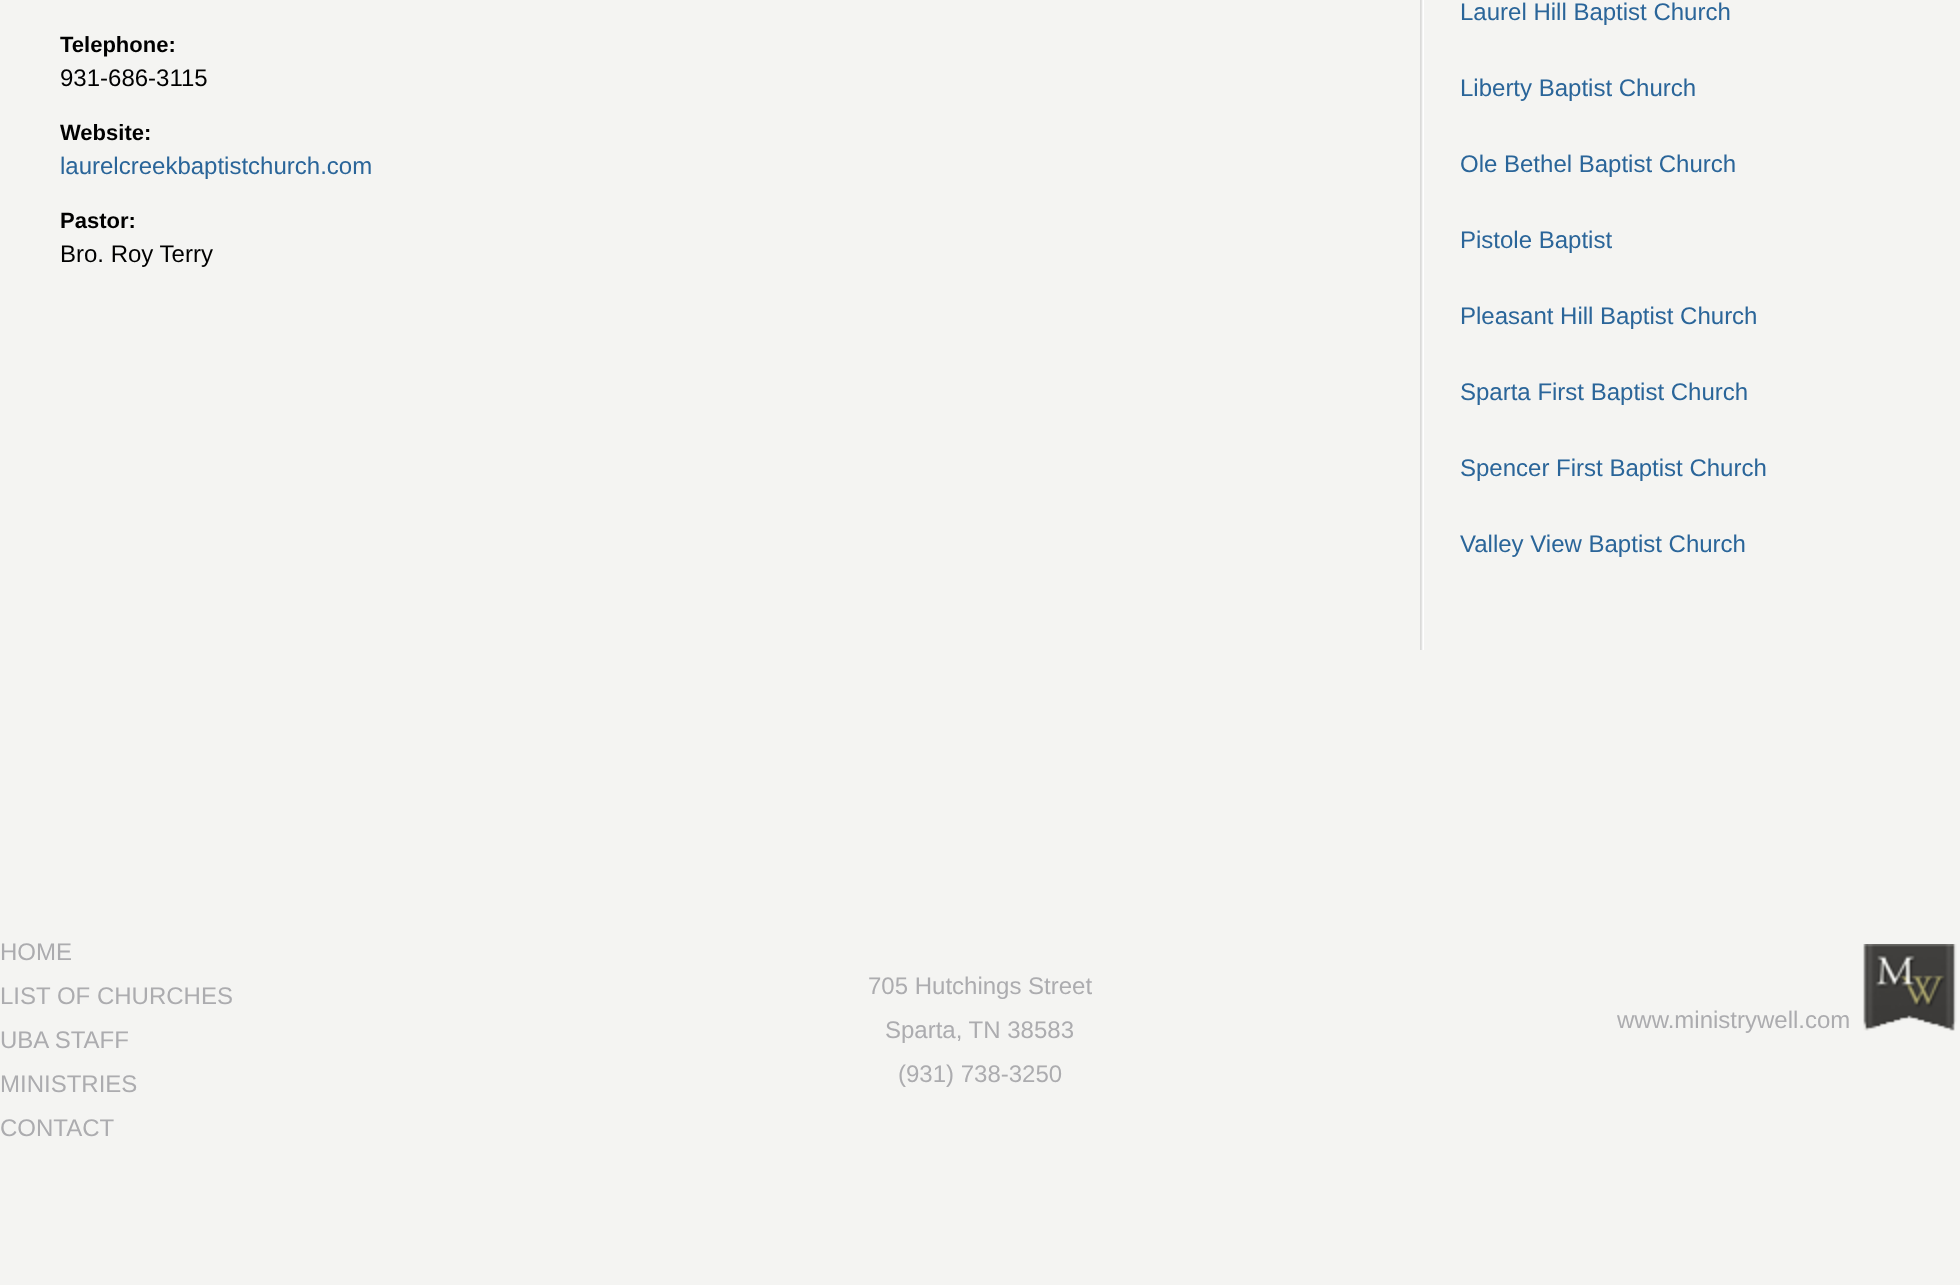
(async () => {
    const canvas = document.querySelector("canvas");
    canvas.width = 1960;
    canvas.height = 1285;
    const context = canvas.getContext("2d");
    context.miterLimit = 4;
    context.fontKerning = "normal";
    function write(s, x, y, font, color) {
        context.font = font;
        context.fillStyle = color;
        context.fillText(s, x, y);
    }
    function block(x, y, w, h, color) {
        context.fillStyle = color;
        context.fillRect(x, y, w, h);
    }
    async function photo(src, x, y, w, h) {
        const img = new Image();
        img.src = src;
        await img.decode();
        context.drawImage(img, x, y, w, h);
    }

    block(0, 0, 1960, 1285, "rgb(244, 244, 242)");
    write("Telephone:", 60, 52, "bold 22px Liberation Sans", "rgb(0, 0, 0)");
    write("931-686-3115", 60, 86, "24px Liberation Sans", "rgb(0, 0, 0)");
    write("Website:", 60, 140, "bold 22px Liberation Sans", "rgb(0, 0, 0)");
    write("laurelcreekbaptistchurch.com", 60, 174, "24px Liberation Sans", "rgb(42, 101, 153)");
    write("Pastor:", 60, 228, "bold 22px Liberation Sans", "rgb(0, 0, 0)");
    write("Bro. Roy Terry", 60, 262, "24px Liberation Sans", "rgb(0, 0, 0)");
    await photo("media/1.png", 1420, 0, 4, 650);
    write("Laurel Hill Baptist Church", 1460, 20, "24px Liberation Sans", "rgb(42, 101, 153)");
    write("Liberty Baptist Church", 1460, 96, "24px Liberation Sans", "rgb(42, 101, 153)");
    write("Ole Bethel Baptist Church", 1460, 172, "24px Liberation Sans", "rgb(42, 101, 153)");
    write("Pistole Baptist", 1460, 248, "24px Liberation Sans", "rgb(42, 101, 153)");
    write("Pleasant Hill Baptist Church", 1460, 324, "24px Liberation Sans", "rgb(42, 101, 153)");
    write("Sparta First Baptist Church", 1460, 400, "24px Liberation Sans", "rgb(42, 101, 153)");
    write("Spencer First Baptist Church", 1460, 476, "24px Liberation Sans", "rgb(42, 101, 153)");
    write("Valley View Baptist Church", 1460, 552, "24px Liberation Sans", "rgb(42, 101, 153)");
    write("HOME", 0, 960, "24px Liberation Sans", "rgb(172, 172, 175)");
    write("LIST OF CHURCHES", 0, 1004, "24px Liberation Sans", "rgb(172, 172, 175)");
    write("UBA STAFF", 0, 1048, "24px Liberation Sans", "rgb(172, 172, 175)");
    write("MINISTRIES", 0, 1092, "24px Liberation Sans", "rgb(172, 172, 175)");
    write("CONTACT", 0, 1136, "24px Liberation Sans", "rgb(172, 172, 175)");
    write("705 Hutchings Street", 868, 994, "24px Liberation Sans", "rgb(172, 172, 175)");
    write("Sparta, TN 38583", 885, 1038, "24px Liberation Sans", "rgb(172, 172, 175)");
    write("(931) 738-3250", 898, 1082, "24px Liberation Sans", "rgb(172, 172, 175)");
    write("www.ministrywell.com", 1617, 1028, "24px Liberation Sans", "rgb(172, 172, 175)");
    await photo("media/2.png", 1863, 944, 94, 87);
})();
